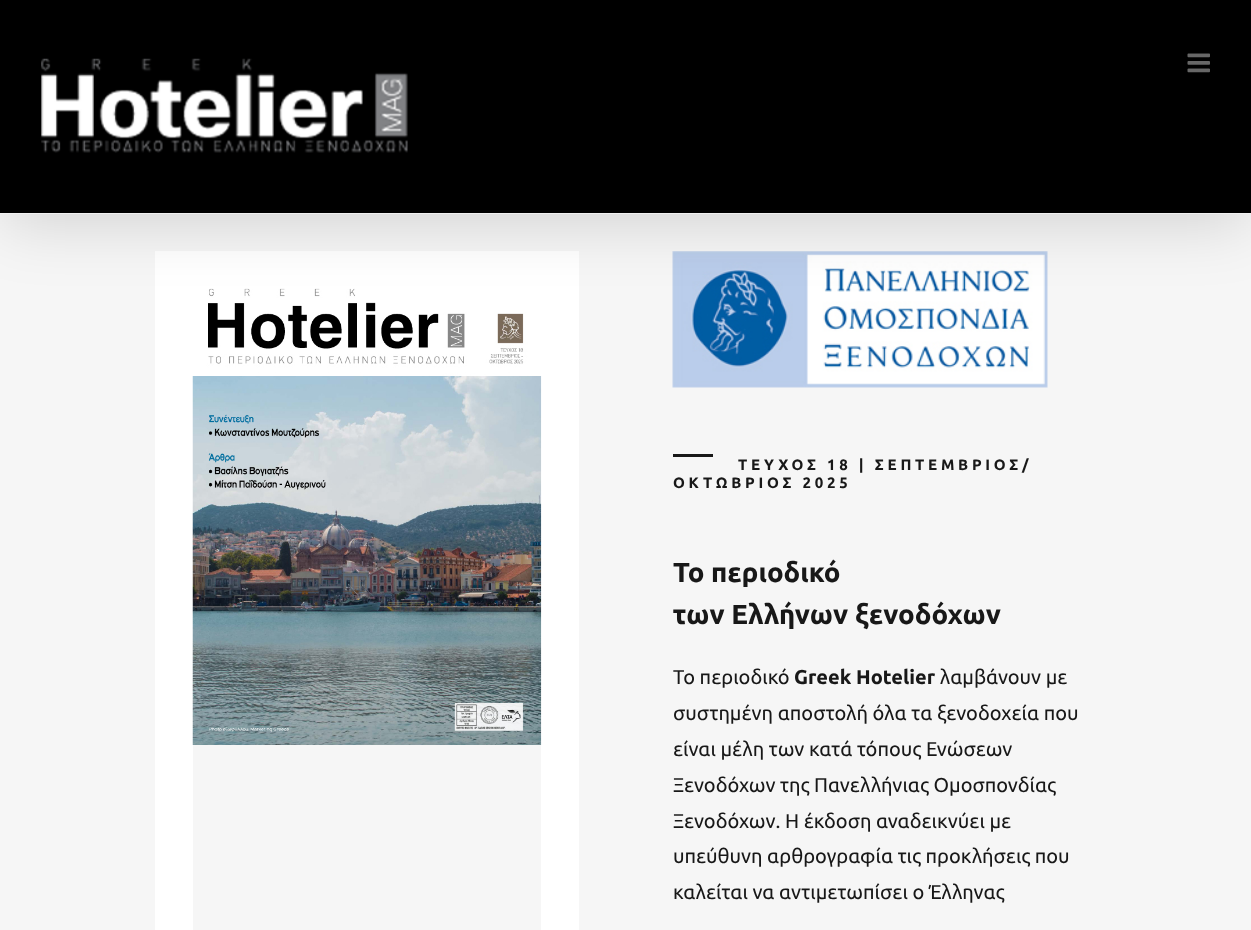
(async () => {
    const canvas = document.querySelector("canvas");
    canvas.width = 1251;
    canvas.height = 930;
    const context = canvas.getContext("2d");
    context.miterLimit = 4;
    context.fontKerning = "normal";
    function write(s, x, y, font, color) {
        context.font = font;
        context.fillStyle = color;
        context.fillText(s, x, y);
    }
    function block(x, y, w, h, color) {
        context.fillStyle = color;
        context.fillRect(x, y, w, h);
    }
    async function photo(src, x, y, w, h) {
        const img = new Image();
        img.src = src;
        await img.decode();
        context.drawImage(img, x, y, w, h);
    }

    block(0, 0, 1251, 930, "rgb(246, 246, 246)");
    context.strokeStyle = "rgb(255, 255, 255)";
    context.lineWidth = 38;
    context.strokeRect(174, 270, 386, 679);
    await photo("media/3.png", 192, 288, 350, 457);
    await photo("media/4.png", 672, 251, 376, 137);
    context.fillStyle = "rgba(0, 0, 0, 0.14)";
    context.filter = "blur(31px)";
    context.beginPath();
    context.rect(3, 15, 1246, 209);
    context.fill();
    context.filter = "none";
    block(0, 0, 1251, 213, "rgb(0, 0, 0)");
    block(0, 213, 1251, 1, "rgb(241, 241, 241)");
    await photo("media/1.png", 41, 58, 367, 95);
    await photo("media/2.png", 1187, 53, 23, 20);
    block(673, 454, 40, 3, "rgb(24, 24, 24)");
    context.letterSpacing = "3.75px";
    write("ΤΕΥΧΟΣ 18 | ΣΕΠΤΕΜΒΡΙΟΣ/", 738, 470, "bold 15px Ubuntu", "rgb(24, 24, 24)");
    write("ΟΚΤΩΒΡΙΟΣ 2025", 673, 488, "bold 15px Ubuntu", "rgb(24, 24, 24)");
    context.letterSpacing = "0px";
    write("Το περιοδικό", 673, 582, "bold 27.5px Ubuntu", "rgb(24, 24, 24)");
    write("των Ελλήνων ξενοδόχων", 673, 624, "bold 27.5px Ubuntu", "rgb(24, 24, 24)");
    write("Το περιοδικό", 673, 684, "20px Ubuntu", "rgb(24, 24, 24)");
    write("Greek Hotelier", 794, 684, "bold 20px Ubuntu", "rgb(24, 24, 24)");
    write("λαμβάνουν με", 940, 684, "20px Ubuntu", "rgb(24, 24, 24)");
    write("συστημένη αποστολή όλα τα ξενοδοχεία που", 673, 720, "20px Ubuntu", "rgb(24, 24, 24)");
    write("είναι μέλη των κατά τόπους Ενώσεων", 673, 756, "20px Ubuntu", "rgb(24, 24, 24)");
    write("Ξενοδόχων της Πανελλήνιας Ομοσπονδίας", 673, 792, "20px Ubuntu", "rgb(24, 24, 24)");
    write("Ξενοδόχων. Η έκδοση αναδεικνύει με", 673, 828, "20px Ubuntu", "rgb(24, 24, 24)");
    write("υπεύθυνη αρθρογραφία τις προκλήσεις που", 673, 863, "20px Ubuntu", "rgb(24, 24, 24)");
    write("καλείται να αντιμετωπίσει ο Έλληνας", 673, 899, "20px Ubuntu", "rgb(24, 24, 24)");
})();
